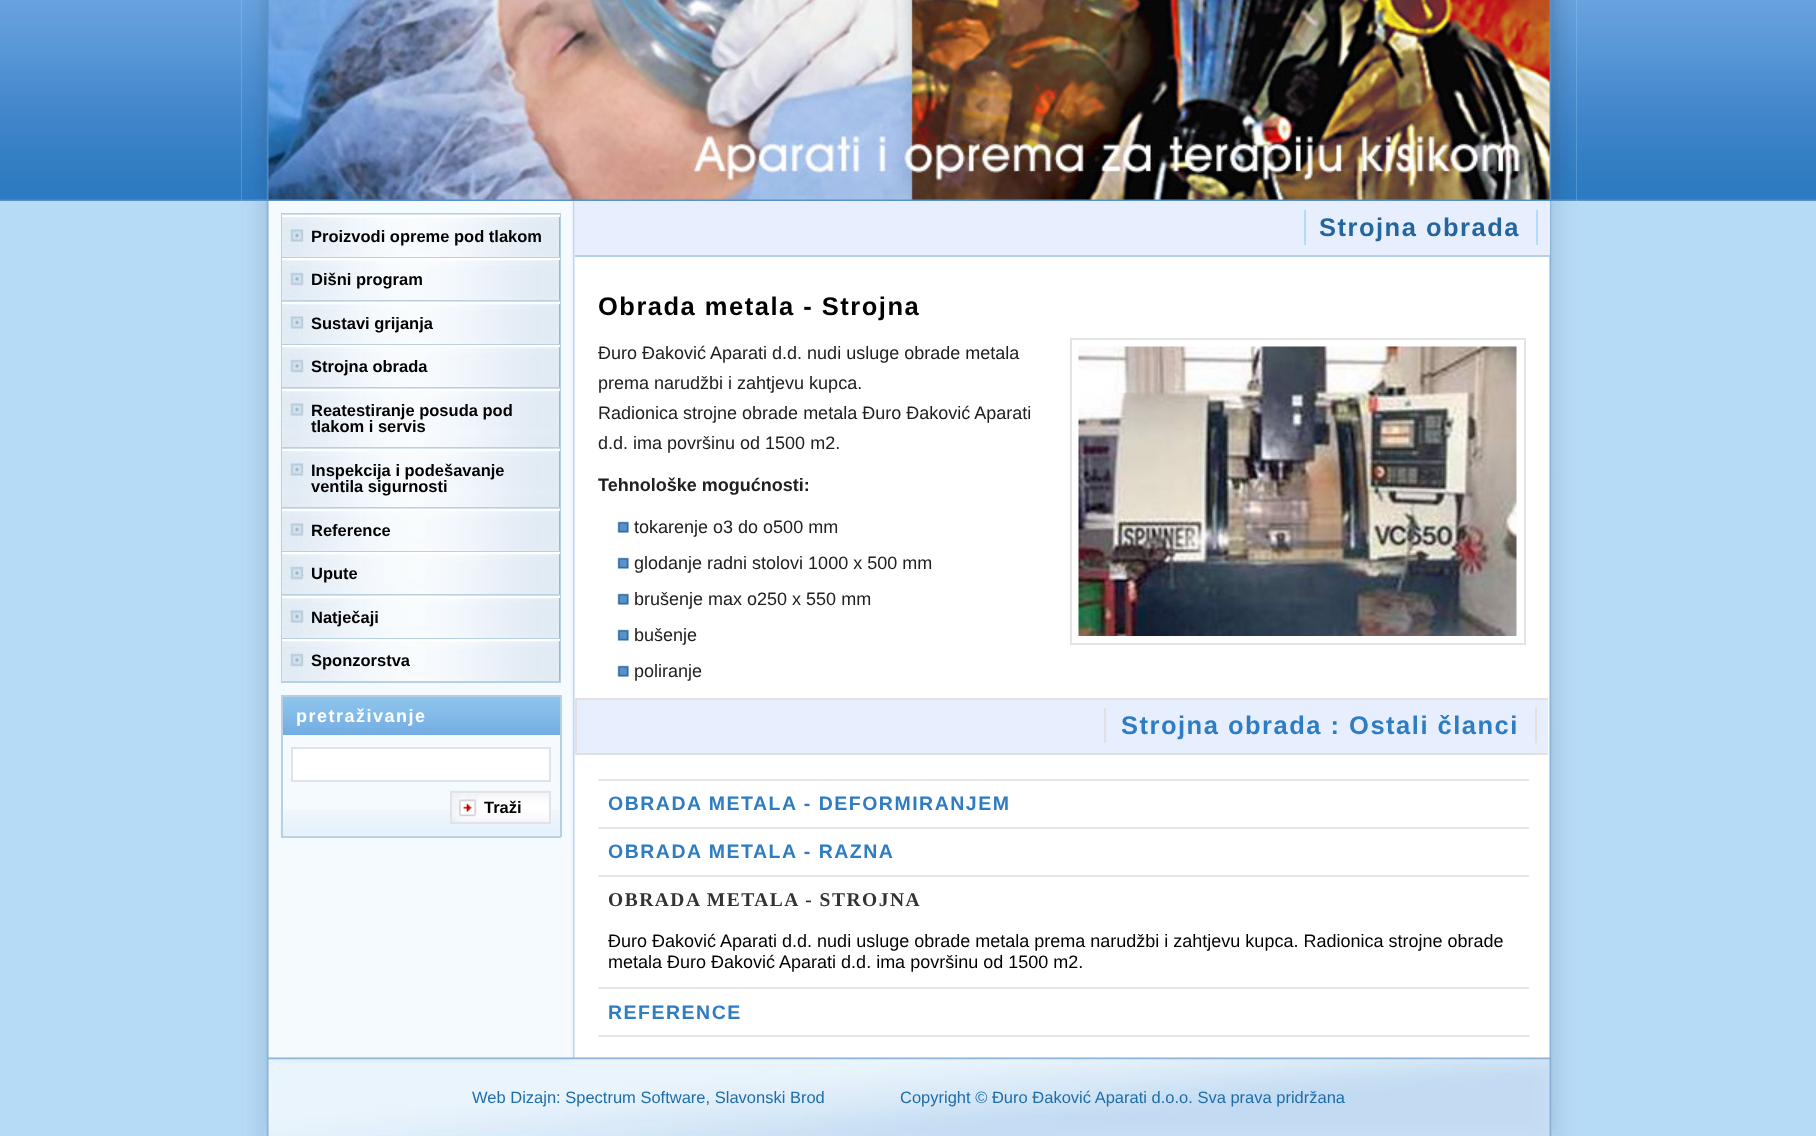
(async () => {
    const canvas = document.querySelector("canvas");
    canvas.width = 1816;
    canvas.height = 1136;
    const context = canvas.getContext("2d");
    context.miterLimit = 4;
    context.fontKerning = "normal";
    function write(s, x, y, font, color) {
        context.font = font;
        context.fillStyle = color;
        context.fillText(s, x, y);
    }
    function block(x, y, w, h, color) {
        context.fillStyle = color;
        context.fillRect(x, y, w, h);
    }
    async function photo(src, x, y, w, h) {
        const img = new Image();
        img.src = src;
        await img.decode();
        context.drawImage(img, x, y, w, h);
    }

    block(0, 0, 1816, 1136, "rgb(181, 219, 247)");
    await photo("media/1.png", 0, 0, 1816, 201);
    await photo("media/2.png", 241, 0, 1336, 1136);
    await photo("media/3.png", 241, 0, 1336, 201);
    block(281, 213, 280, 470, "rgb(183, 209, 226)");
    block(559, 217, 1, 40, "rgb(0, 153, 255)");
    await photo("media/4.png", 282, 214, 278, 43);
    block(282, 215, 278, 2, "rgb(255, 255, 255)");
    write("Proizvodi opreme pod tlakom", 311, 242, "bold 16.5px Liberation Sans", "rgb(0, 0, 0)");
    block(559, 260, 1, 40, "rgb(0, 153, 255)");
    await photo("media/5.png", 282, 260, 278, 40);
    block(282, 258, 278, 2, "rgb(255, 255, 255)");
    write("Dišni program", 311, 285, "bold 16.5px Liberation Sans", "rgb(0, 0, 0)");
    block(559, 304, 1, 40, "rgb(0, 153, 255)");
    await photo("media/6.png", 282, 301, 278, 43);
    block(282, 302, 278, 2, "rgb(255, 255, 255)");
    write("Sustavi grijanja", 311, 329, "bold 16.5px Liberation Sans", "rgb(0, 0, 0)");
    block(559, 347, 1, 40, "rgb(0, 153, 255)");
    await photo("media/7.png", 282, 347, 278, 40);
    block(282, 345, 278, 2, "rgb(255, 255, 255)");
    write("Strojna obrada", 311, 372, "bold 16.5px Liberation Sans", "rgb(0, 0, 0)");
    block(559, 391, 1, 56, "rgb(0, 153, 255)");
    await photo("media/8.png", 282, 388, 278, 59);
    block(282, 389, 278, 2, "rgb(255, 255, 255)");
    write("Reatestiranje posuda pod", 311, 416, "bold 16.5px Liberation Sans", "rgb(0, 0, 0)");
    write("tlakom i servis", 311, 432, "bold 16.5px Liberation Sans", "rgb(0, 0, 0)");
    block(559, 451, 1, 56, "rgb(0, 153, 255)");
    await photo("media/9.png", 282, 448, 278, 59);
    block(282, 449, 278, 2, "rgb(255, 255, 255)");
    write("Inspekcija i podešavanje", 311, 476, "bold 16.5px Liberation Sans", "rgb(0, 0, 0)");
    write("ventila sigurnosti", 311, 492, "bold 16.5px Liberation Sans", "rgb(0, 0, 0)");
    block(559, 511, 1, 40, "rgb(0, 153, 255)");
    await photo("media/10.png", 282, 508, 278, 43);
    block(282, 509, 278, 2, "rgb(255, 255, 255)");
    write("Reference", 311, 536, "bold 16.5px Liberation Sans", "rgb(0, 0, 0)");
    block(559, 554, 1, 40, "rgb(0, 153, 255)");
    await photo("media/11.png", 282, 554, 278, 40);
    block(282, 552, 278, 2, "rgb(255, 255, 255)");
    write("Upute", 311, 579, "bold 16.5px Liberation Sans", "rgb(0, 0, 0)");
    block(559, 598, 1, 40, "rgb(0, 153, 255)");
    await photo("media/6.png", 282, 595, 278, 43);
    block(282, 596, 278, 2, "rgb(255, 255, 255)");
    write("Natječaji", 311, 623, "bold 16.5px Liberation Sans", "rgb(0, 0, 0)");
    block(559, 641, 1, 40, "rgb(0, 153, 255)");
    await photo("media/12.png", 282, 641, 278, 40);
    block(282, 639, 278, 2, "rgb(255, 255, 255)");
    write("Sponzorstva", 311, 666, "bold 16.5px Liberation Sans", "rgb(0, 0, 0)");
    await photo("media/13.png", 283, 697, 277, 38);
    block(281, 695, 280, 2, "rgb(183, 209, 226)");
    block(560, 695, 2, 142, "rgb(183, 209, 226)");
    block(281, 695, 2, 40, "rgb(186, 206, 230)");
    context.letterSpacing = "1.5px";
    write("pretraživanje", 296, 722, "bold 18px Liberation Sans", "rgb(255, 255, 255)");
    await photo("media/14.png", 280, 809, 280, 27);
    block(281, 836, 280, 2, "rgb(183, 209, 226)");
    block(281, 735, 2, 102, "rgb(183, 209, 226)");
    context.fillStyle = "rgb(255, 255, 255)";
    context.beginPath();
    context.rect(292, 748, 258, 33);
    context.fill();
    context.strokeStyle = "rgb(224, 227, 233)";
    context.lineWidth = 2;
    context.stroke();
    await photo("media/15.png", 450, 790, 101, 32);
    context.strokeRect(451, 792, 99, 31);
    context.letterSpacing = "0px";
    write("Traži", 484, 813, "bold 16.5px Liberation Sans", "rgb(0, 0, 0)");
    block(575, 201, 975, 54, "rgb(231, 239, 254)");
    block(575, 255, 975, 2, "rgb(181, 207, 232)");
    context.letterSpacing = "1.5px";
    write("Strojna obrada", 1319, 236, "bold 25.5px Liberation Sans", "rgb(36, 101, 159)");
    block(1536, 210, 2, 35, "rgb(181, 219, 247)");
    block(1304, 210, 2, 35, "rgb(181, 219, 247)");
    write("Obrada metala - Strojna", 598, 315, "bold 25.5px Liberation Sans", "rgb(0, 0, 0)");
    context.letterSpacing = "0px";
    write("Đuro Đaković Aparati d.d. nudi usluge obrade metala", 598, 359, "18px Liberation Sans", "rgb(32, 32, 32)");
    write("prema narudžbi i zahtjevu kupca.", 598, 389, "18px Liberation Sans", "rgb(32, 32, 32)");
    write("Radionica strojne obrade metala Đuro Đaković Aparati", 598, 419, "18px Liberation Sans", "rgb(32, 32, 32)");
    write("d.d. ima površinu od 1500 m2.", 598, 449, "18px Liberation Sans", "rgb(32, 32, 32)");
    context.strokeStyle = "rgb(228, 228, 229)";
    context.strokeRect(1071, 339, 454, 305);
    await photo("media/16.png", 1078, 346, 439, 290);
    write("Tehnološke mogućnosti:", 598, 491, "bold 18px Liberation Sans", "rgb(32, 32, 32)");
    await photo("media/17.png", 617, 521, 12, 12);
    write("tokarenje o3 do o500 mm", 634, 533, "18px Liberation Sans", "rgb(32, 32, 32)");
    await photo("media/17.png", 617, 557, 12, 12);
    write("glodanje radni stolovi 1000 x 500 mm", 634, 569, "18px Liberation Sans", "rgb(32, 32, 32)");
    await photo("media/17.png", 617, 593, 12, 12);
    write("brušenje max o250 x 550 mm", 634, 605, "18px Liberation Sans", "rgb(32, 32, 32)");
    await photo("media/17.png", 617, 629, 12, 12);
    write("bušenje", 634, 641, "18px Liberation Sans", "rgb(32, 32, 32)");
    await photo("media/17.png", 617, 665, 12, 12);
    write("poliranje", 634, 677, "18px Liberation Sans", "rgb(32, 32, 32)");
    block(577, 700, 971, 53, "rgb(231, 239, 254)");
    block(575, 698, 973, 2, "rgb(225, 225, 225)");
    block(575, 753, 973, 2, "rgb(225, 225, 225)");
    block(575, 698, 2, 57, "rgb(225, 225, 225)");
    context.letterSpacing = "1.5px";
    write("Strojna obrada : Ostali članci", 1121, 734, "bold 25.5px Liberation Sans", "rgb(47, 124, 194)");
    block(1535, 708, 2, 35, "rgb(225, 225, 225)");
    block(1104, 708, 2, 35, "rgb(225, 225, 225)");
    block(596, 779, 934, 2, "rgb(232, 232, 232)");
    block(1529, 779, 1, 2, "rgb(255, 255, 255)");
    block(596, 779, 2, 2, "rgb(255, 255, 255)");
    write("OBRADA METALA - DEFORMIRANJEM", 608, 810, "bold 19.5px Liberation Sans", "rgb(47, 124, 194)");
    block(596, 827, 934, 2, "rgb(232, 232, 232)");
    block(1529, 827, 1, 2, "rgb(255, 255, 255)");
    block(596, 827, 2, 2, "rgb(255, 255, 255)");
    write("OBRADA METALA - RAZNA", 608, 858, "bold 19.5px Liberation Sans", "rgb(47, 124, 194)");
    block(596, 875, 934, 2, "rgb(232, 232, 232)");
    block(1529, 875, 1, 2, "rgb(255, 255, 255)");
    block(596, 875, 2, 2, "rgb(255, 255, 255)");
    write("OBRADA METALA - STROJNA", 608, 906, "bold 19.5px Liberation Serif", "rgb(51, 51, 51)");
    context.letterSpacing = "0px";
    write("Đuro Đaković Aparati d.d. nudi usluge obrade metala prema narudžbi i zahtjevu kupca. Radionica strojne obrade", 608, 947, "18px Liberation Sans", "rgb(0, 0, 0)");
    write("metala Đuro Đaković Aparati d.d. ima površinu od 1500 m2.", 608, 968, "18px Liberation Sans", "rgb(0, 0, 0)");
    block(596, 987, 934, 2, "rgb(232, 232, 232)");
    block(1529, 987, 1, 2, "rgb(255, 255, 255)");
    block(596, 1035, 934, 2, "rgb(232, 232, 232)");
    block(596, 987, 2, 50, "rgb(255, 255, 255)");
    context.letterSpacing = "1.5px";
    write("REFERENCE", 608, 1019, "bold 19.5px Liberation Sans", "rgb(47, 124, 194)");
    await photo("media/18.png", 264, 1057, 1296, 79);
    context.letterSpacing = "0px";
    write("Web Dizajn: Spectrum Software, Slavonski Brod", 472, 1103, "16.5px Liberation Sans", "rgb(30, 109, 168)");
    write("Copyright © Đuro Đaković Aparati d.o.o. Sva prava pridržana", 900, 1103, "16.5px Liberation Sans", "rgb(30, 109, 168)");
})();
